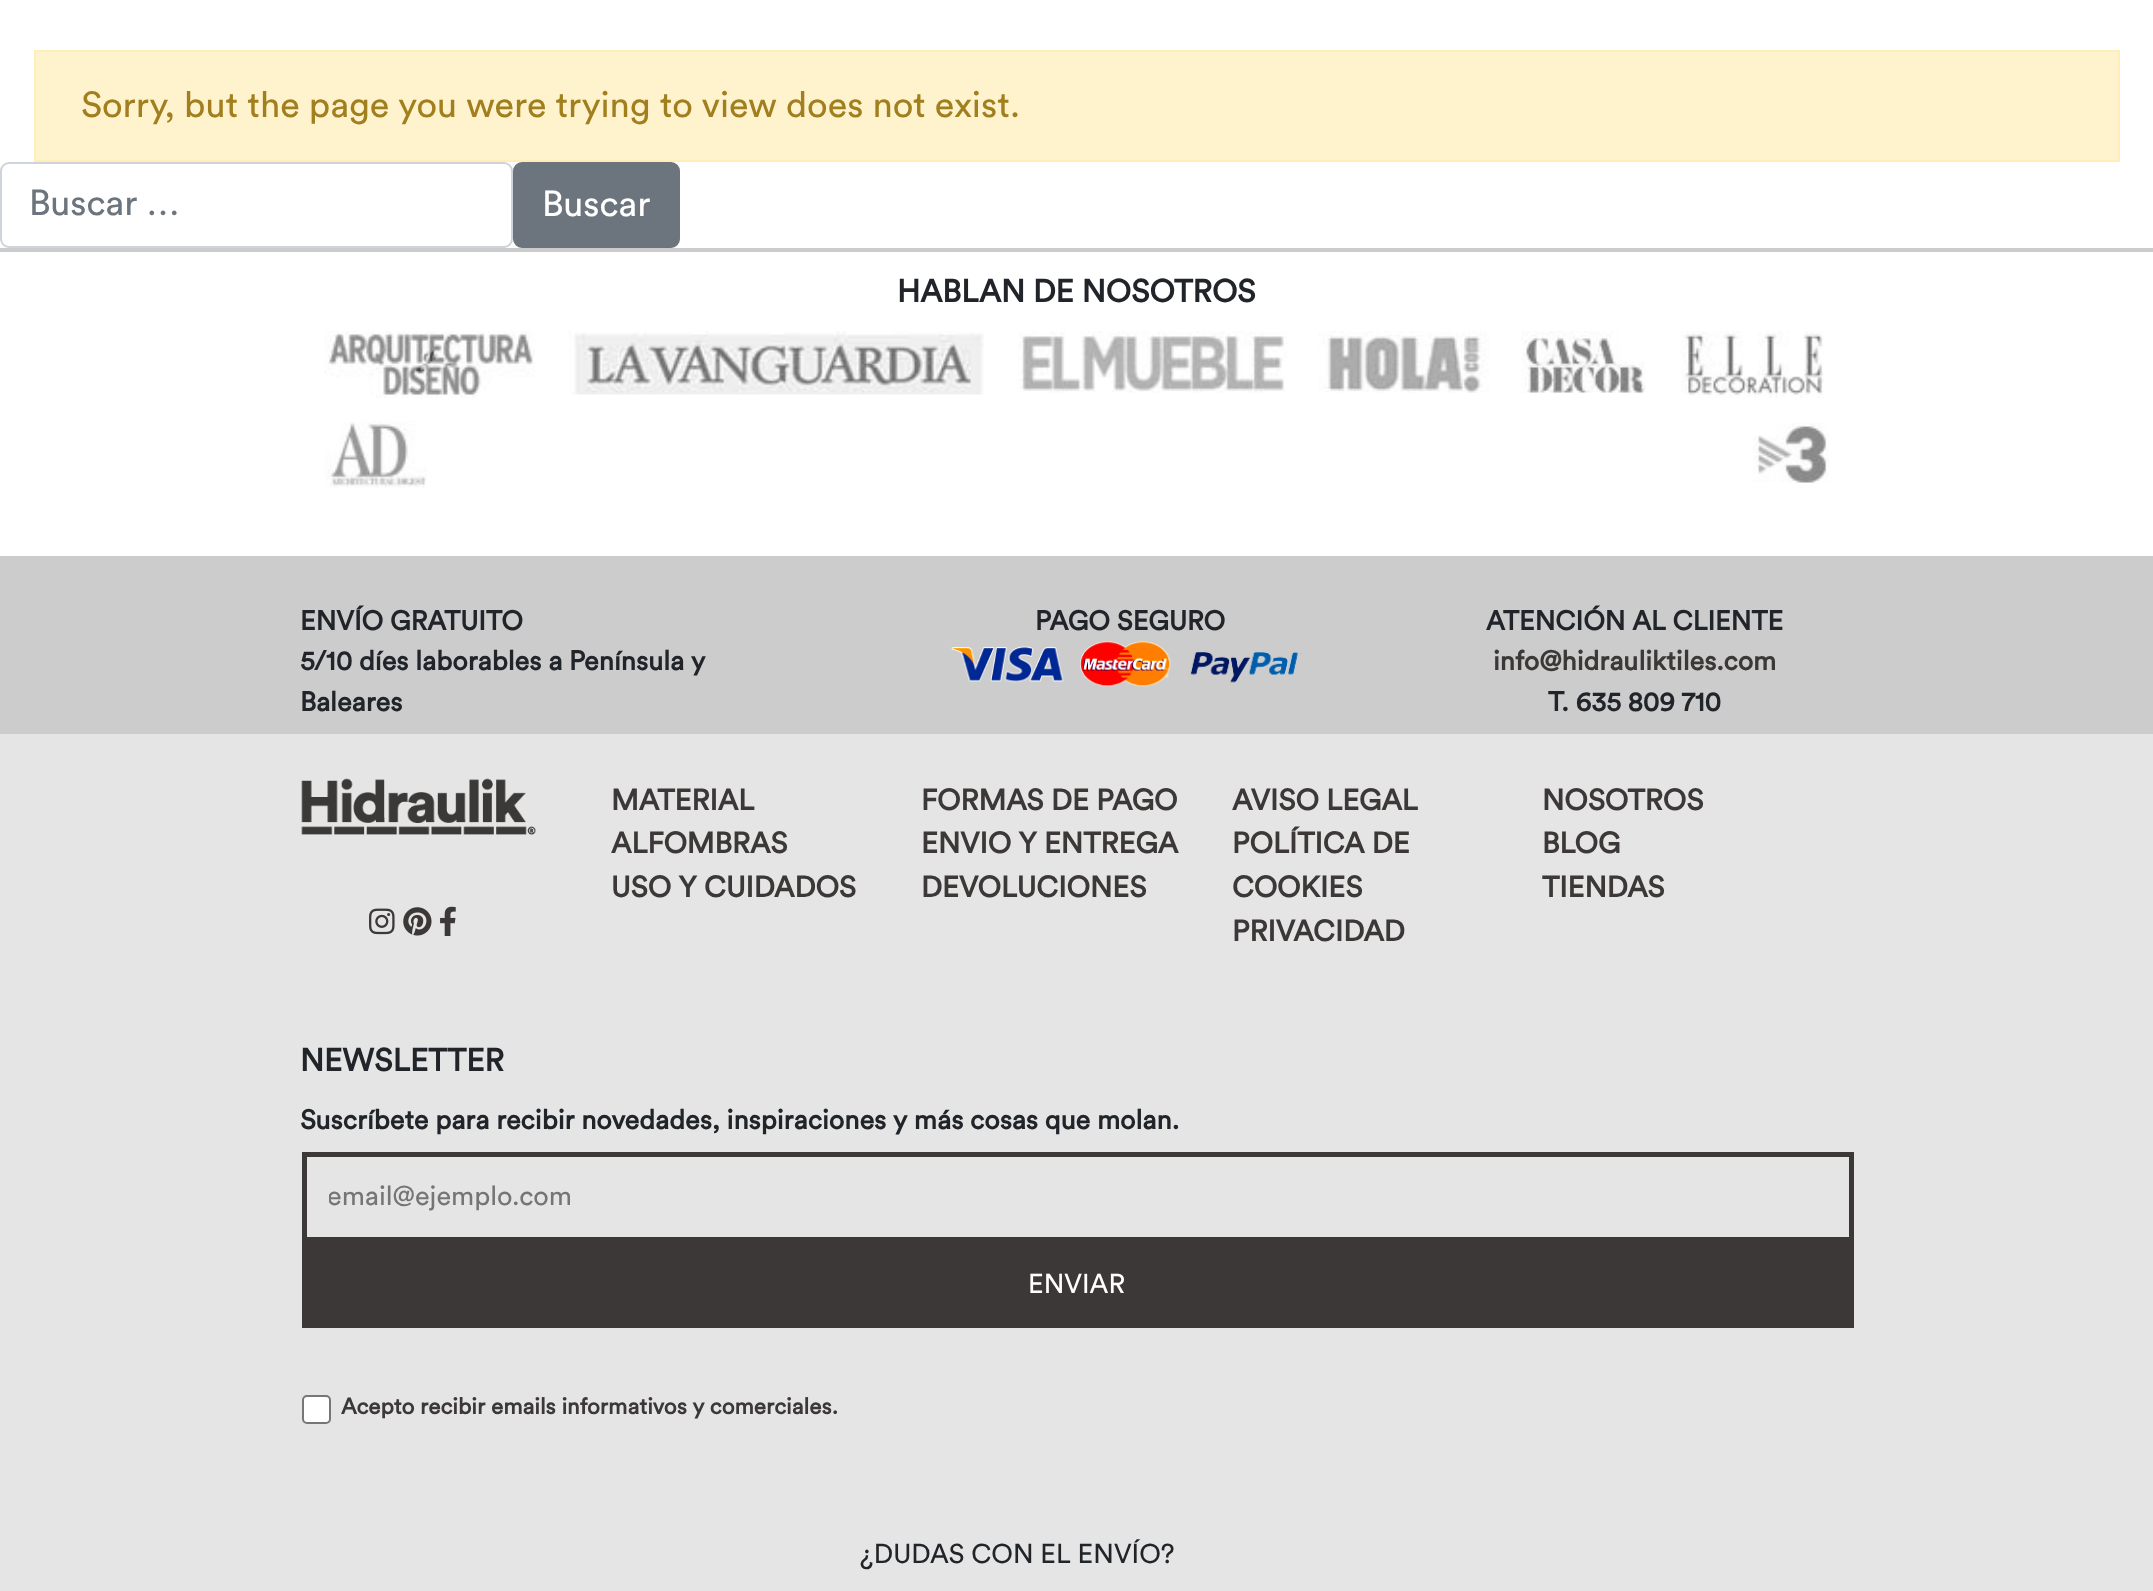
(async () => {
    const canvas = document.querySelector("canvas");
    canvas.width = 2153;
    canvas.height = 1591;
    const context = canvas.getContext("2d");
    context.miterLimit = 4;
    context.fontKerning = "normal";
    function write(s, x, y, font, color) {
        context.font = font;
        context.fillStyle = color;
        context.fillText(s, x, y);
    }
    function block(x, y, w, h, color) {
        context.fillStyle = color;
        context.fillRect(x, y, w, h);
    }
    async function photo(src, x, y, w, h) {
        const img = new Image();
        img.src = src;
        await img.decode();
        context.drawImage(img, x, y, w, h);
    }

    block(0, 0, 2153, 1591, "rgb(255, 255, 255)");
    context.fillStyle = "rgb(255, 243, 205)";
    context.beginPath();
    context.rect(35, 51, 2084, 110);
    context.fill();
    context.strokeStyle = "rgb(255, 238, 186)";
    context.lineWidth = 2;
    context.stroke();
    write("Sorry, but the page you were trying to view does not exist.", 81, 117, "36px Circular", "rgb(161, 127, 30)");
    context.beginPath();
    context.roundRect(1, 163, 511, 84, 8);
    context.strokeStyle = "rgb(206, 212, 218)";
    context.stroke();
    write("Buscar …", 29, 215, "36px Circular", "rgb(108, 117, 125)");
    context.beginPath();
    context.roundRect(514, 163, 165, 84, 8);
    context.fill();
    context.strokeStyle = "rgb(108, 117, 125)";
    context.stroke();
    write("Buscar", 542, 216, "36px Circular", "rgb(255, 255, 255)");
    block(0, 248, 2153, 4, "rgb(204, 204, 204)");
    write("HABLAN DE NOSOTROS", 897, 302, "bold 31.5px Circular", "rgb(33, 37, 41)");
    await photo("media/1.png", 324, 331, 211, 67);
    await photo("media/2.png", 569, 331, 415, 64);
    await photo("media/3.png", 1019, 331, 268, 62);
    await photo("media/4.png", 1319, 331, 170, 62);
    await photo("media/5.png", 1521, 331, 125, 62);
    await photo("media/6.png", 1681, 331, 143, 67);
    await photo("media/7.png", 324, 421, 103, 67);
    await photo("media/8.png", 1753, 423, 76, 60);
    block(0, 556, 2153, 178, "rgb(204, 204, 204)");
    write("ENVÍO GRATUITO", 300, 630, "bold 27px Circular", "rgb(33, 37, 41)");
    write("5/10 díes laborables a Península y", 300, 670, "bold 27px Circular", "rgb(33, 37, 41)");
    write("Baleares", 300, 711, "bold 27px Circular", "rgb(33, 37, 41)");
    write("PAGO SEGURO", 1035, 630, "bold 27px Circular", "rgb(33, 37, 41)");
    await photo("media/9.png", 951, 641, 358, 46);
    write("ATENCIÓN AL CLIENTE", 1486, 630, "bold 27px Circular", "rgb(33, 37, 41)");
    write("info@hidrauliktiles.com", 1493, 670, "bold 27px Circular", "rgb(59, 56, 55)");
    write("T. 635 809 710", 1548, 711, "bold 27px Circular", "rgb(33, 37, 41)");
    block(0, 734, 2153, 857, "rgb(229, 229, 229)");
    await photo("media/10.png", 301, 778, 235, 57);
    await photo("media/11.png", 369, 908, 26, 27);
    await photo("media/12.png", 403, 907, 29, 29);
    await photo("media/13.png", 440, 906, 16, 30);
    write("MATERIAL", 611, 810, "bold 29.25px Circular", "rgb(59, 56, 55)");
    write("ALFOMBRAS", 611, 853, "bold 29.25px Circular", "rgb(59, 56, 55)");
    write("USO Y CUIDADOS", 611, 897, "bold 29.25px Circular", "rgb(59, 56, 55)");
    write("FORMAS DE PAGO", 921, 810, "bold 29.25px Circular", "rgb(59, 56, 55)");
    write("ENVIO Y ENTREGA", 921, 853, "bold 29.25px Circular", "rgb(59, 56, 55)");
    write("DEVOLUCIONES", 921, 897, "bold 29.25px Circular", "rgb(59, 56, 55)");
    write("AVISO LEGAL", 1232, 810, "bold 29.25px Circular", "rgb(59, 56, 55)");
    write("POLÍTICA DE", 1232, 853, "bold 29.25px Circular", "rgb(59, 56, 55)");
    write("COOKIES", 1232, 897, "bold 29.25px Circular", "rgb(59, 56, 55)");
    write("PRIVACIDAD", 1232, 941, "bold 29.25px Circular", "rgb(59, 56, 55)");
    write("NOSOTROS", 1542, 810, "bold 29.25px Circular", "rgb(59, 56, 55)");
    write("BLOG", 1542, 853, "bold 29.25px Circular", "rgb(59, 56, 55)");
    write("TIENDAS", 1542, 897, "bold 29.25px Circular", "rgb(59, 56, 55)");
    write("NEWSLETTER", 300, 1071, "bold 31.5px Circular", "rgb(33, 37, 41)");
    write("Suscríbete para recibir novedades, inspiraciones y más cosas que molan.", 300, 1129, "bold 27px Circular", "rgb(33, 37, 41)");
    context.strokeStyle = "rgb(59, 56, 55)";
    context.lineWidth = 5;
    context.strokeRect(304.5, 1154.5, 1547, 85);
    context.save();
    context.beginPath();
    context.rect(329, 1181, 1516, 32);
    context.clip();
    write("email@ejemplo.com", 327, 1205, "27px Circular", "rgb(117, 117, 117)");
    context.restore();
    block(302, 1242, 1552, 86, "rgb(59, 56, 55)");
    write("ENVIAR", 1028, 1293, "27px Circular", "rgb(255, 255, 255)");
    context.beginPath();
    context.roundRect(303, 1396, 27, 27, 4);
    context.fill();
    context.strokeStyle = "rgb(118, 118, 118)";
    context.lineWidth = 2;
    context.stroke();
    write("Acepto recibir emails informativos y comerciales.", 341, 1414, "bold 22.5px Circular", "rgb(59, 56, 55)");
    write("¿DUDAS CON EL ENVÍO?", 860, 1563, "27px Circular", "rgb(33, 37, 41)");
})();
